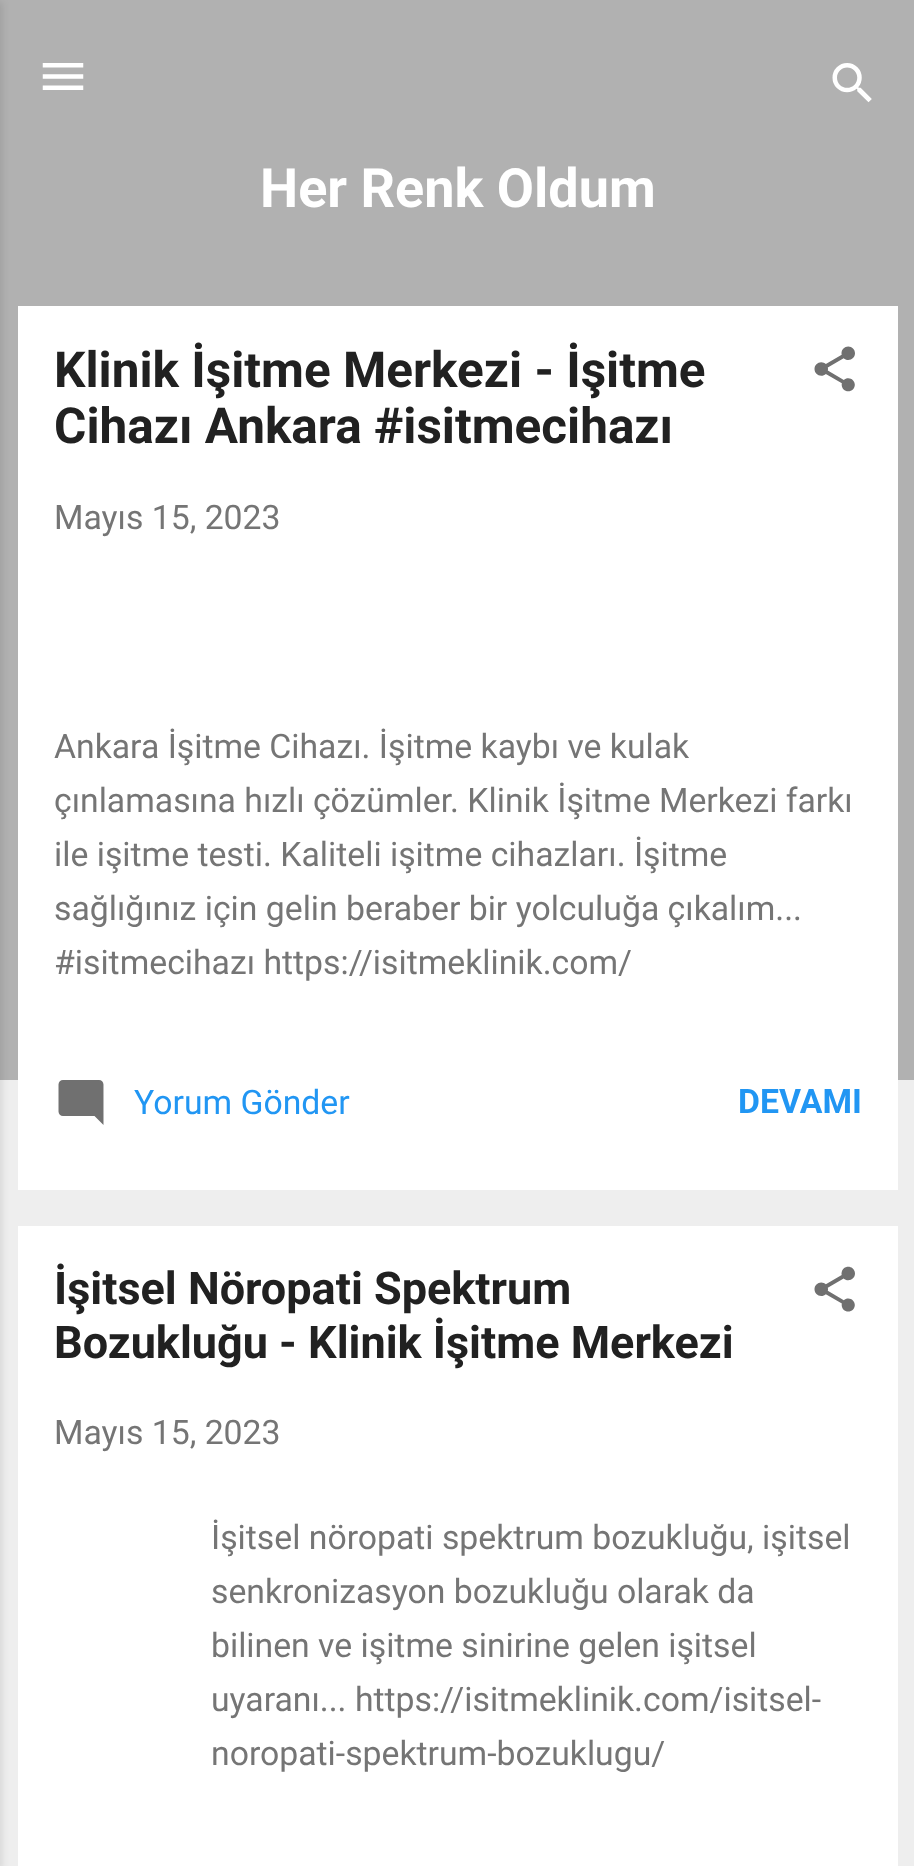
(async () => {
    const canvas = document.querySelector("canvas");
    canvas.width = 914;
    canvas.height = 1866;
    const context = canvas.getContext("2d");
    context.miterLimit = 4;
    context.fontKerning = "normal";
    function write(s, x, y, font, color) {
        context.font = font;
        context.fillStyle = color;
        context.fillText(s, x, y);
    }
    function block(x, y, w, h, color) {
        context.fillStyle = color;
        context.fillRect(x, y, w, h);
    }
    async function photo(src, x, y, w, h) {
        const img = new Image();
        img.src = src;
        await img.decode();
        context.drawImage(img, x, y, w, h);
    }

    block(0, 0, 914, 1866, "rgb(238, 238, 238)");
    block(0, 0, 914, 1080, "rgb(177, 177, 177)");
    context.fillStyle = "rgba(0, 0, 0, 0.1)";
    context.filter = "blur(3.5px)";
    context.beginPath();
    context.rect(-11, 2, 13, 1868);
    context.fill();
    context.filter = "none";
    await photo("media/1.png", 42, 63, 42, 27);
    await photo("media/2.png", 832, 63, 40, 40);
    write("Her Renk Oldum", 260, 207, "bold 54px Roboto", "rgb(255, 255, 255)");
    block(18, 306, 880, 884, "rgb(255, 255, 255)");
    write("Klinik İşitme Merkezi - İşitme", 54, 387, "bold 49.5px Roboto", "rgb(33, 33, 33)");
    write("Cihazı Ankara #isitmecihazı", 54, 443, "bold 49.5px Roboto", "rgb(33, 33, 33)");
    await photo("media/3.png", 814, 346, 41, 46);
    write("Mayıs 15, 2023", 54, 529, "33.75px Roboto", "rgb(117, 117, 117)");
    write("Ankara İşitme Cihazı. İşitme kaybı ve kulak", 54, 758, "33.75px Roboto", "rgb(117, 117, 117)");
    write("çınlamasına hızlı çözümler. Klinik İşitme Merkezi farkı", 54, 812, "33.75px Roboto", "rgb(117, 117, 117)");
    write("ile işitme testi. Kaliteli işitme cihazları. İşitme", 54, 866, "33.75px Roboto", "rgb(117, 117, 117)");
    write("sağlığınız için gelin beraber bir yolculuğa çıkalım...", 54, 920, "33.75px Roboto", "rgb(117, 117, 117)");
    write("#isitmecihazı https://isitmeklinik.com/", 54, 974, "33.75px Roboto", "rgb(117, 117, 117)");
    await photo("media/4.png", 58, 1080, 46, 45);
    write("Yorum Gönder", 134, 1114, "33.75px Roboto", "rgb(33, 150, 243)");
    write("DEVAMI", 738, 1113, "bold 33.75px Roboto", "rgb(33, 150, 243)");
    block(18, 1226, 880, 640, "rgb(255, 255, 255)");
    write("İşitsel Nöropati Spektrum", 54, 1304, "bold 45px Roboto", "rgb(33, 33, 33)");
    write("Bozukluğu - Klinik İşitme Merkezi", 54, 1358, "bold 45px Roboto", "rgb(33, 33, 33)");
    await photo("media/5.png", 814, 1266, 41, 46);
    write("Mayıs 15, 2023", 54, 1444, "33.75px Roboto", "rgb(117, 117, 117)");
    write("İşitsel nöropati spektrum bozukluğu, işitsel", 211, 1549, "33.75px Roboto", "rgb(117, 117, 117)");
    write("senkronizasyon bozukluğu olarak da", 211, 1603, "33.75px Roboto", "rgb(117, 117, 117)");
    write("bilinen ve işitme sinirine gelen işitsel", 211, 1657, "33.75px Roboto", "rgb(117, 117, 117)");
    write("uyaranı... https://isitmeklinik.com/isitsel-", 211, 1711, "33.75px Roboto", "rgb(117, 117, 117)");
    write("noropati-spektrum-bozuklugu/", 211, 1765, "33.75px Roboto", "rgb(117, 117, 117)");
})();
